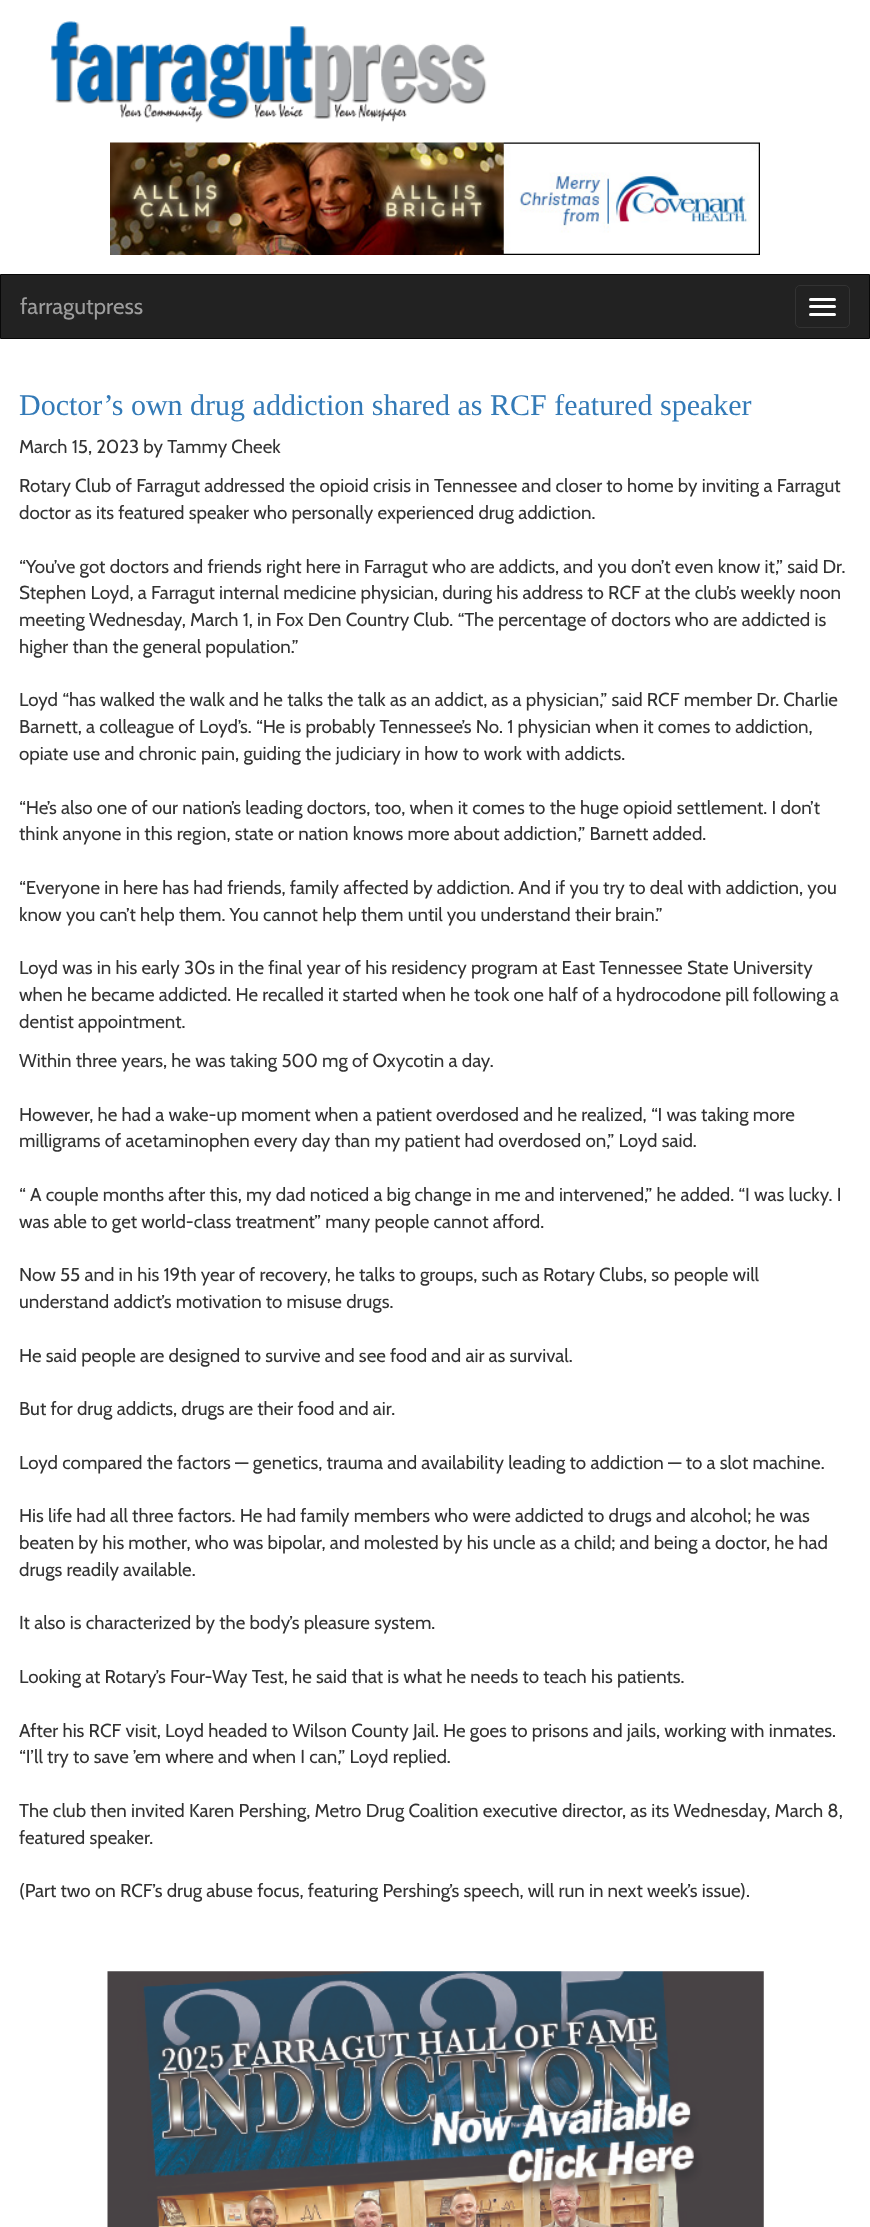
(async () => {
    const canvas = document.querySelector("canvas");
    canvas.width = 870;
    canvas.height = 2227;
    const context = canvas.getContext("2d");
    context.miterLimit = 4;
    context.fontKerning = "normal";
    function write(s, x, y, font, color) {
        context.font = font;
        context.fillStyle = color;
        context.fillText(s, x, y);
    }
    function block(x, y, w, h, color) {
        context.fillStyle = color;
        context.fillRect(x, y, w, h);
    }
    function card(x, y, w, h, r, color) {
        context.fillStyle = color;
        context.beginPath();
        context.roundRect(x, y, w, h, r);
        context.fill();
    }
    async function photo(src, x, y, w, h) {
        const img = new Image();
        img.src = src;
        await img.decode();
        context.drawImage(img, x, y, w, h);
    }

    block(0, 0, 870, 2227, "rgb(255, 255, 255)");
    await photo("media/1.png", 50, 21, 437, 102);
    await photo("media/2.png", 110, 142, 650, 113);
    context.fillStyle = "rgb(34, 34, 34)";
    context.beginPath();
    context.rect(0.5, 274.5, 869, 64);
    context.fill();
    context.strokeStyle = "rgb(8, 8, 8)";
    context.stroke();
    write("farragutpress", 20, 314, "22.5px Cabin", "rgb(157, 157, 157)");
    context.beginPath();
    context.roundRect(795.5, 285.5, 54, 42, 4.5);
    context.strokeStyle = "rgb(51, 51, 51)";
    context.stroke();
    card(809, 298, 27, 3, 1.5, "rgb(255, 255, 255)");
    card(809, 305, 27, 3, 1.5, "rgb(255, 255, 255)");
    card(809, 313, 27, 3, 1.5, "rgb(255, 255, 255)");
    write("Doctor’s own drug addiction shared as RCF featured speaker", 19, 415, "30px Liberation Serif", "rgb(51, 122, 183)");
    write("March 15, 2023 by Tammy Cheek", 19, 453, "18.75px Cabin", "rgb(51, 51, 51)");
    write("Rotary Club of Farragut addressed the opioid crisis in Tennessee and closer to home by inviting a Farragut", 19, 492, "18.75px Cabin", "rgb(51, 51, 51)");
    write("doctor as its featured speaker who personally experienced drug addiction.", 19, 519, "18.75px Cabin", "rgb(51, 51, 51)");
    write("“You’ve got doctors and friends right here in Farragut who are addicts, and you don’t even know it,” said Dr.", 19, 573, "18.75px Cabin", "rgb(51, 51, 51)");
    write("Stephen Loyd, a Farragut internal medicine physician, during his address to RCF at the club’s weekly noon", 19, 599, "18.75px Cabin", "rgb(51, 51, 51)");
    write("meeting Wednesday, March 1, in Fox Den Country Club. “The percentage of doctors who are addicted is", 19, 626, "18.75px Cabin", "rgb(51, 51, 51)");
    write("higher than the general population.”", 19, 653, "18.75px Cabin", "rgb(51, 51, 51)");
    write("Loyd “has walked the walk and he talks the talk as an addict, as a physician,” said RCF member Dr. Charlie", 19, 706, "18.75px Cabin", "rgb(51, 51, 51)");
    write("Barnett, a colleague of Loyd’s. “He is probably Tennessee’s No. 1 physician when it comes to addiction,", 19, 733, "18.75px Cabin", "rgb(51, 51, 51)");
    context.wordSpacing = "0.25px";
    write("opiate use and chronic pain, guiding the judiciary in how to work with addicts.", 19, 760, "18.75px Cabin", "rgb(51, 51, 51)");
    context.wordSpacing = "0px";
    write("“He’s also one of our nation’s leading doctors, too, when it comes to the huge opioid settlement. I don’t", 19, 814, "18.75px Cabin", "rgb(51, 51, 51)");
    write("think anyone in this region, state or nation knows more about addiction,” Barnett added.", 19, 840, "18.75px Cabin", "rgb(51, 51, 51)");
    write("“Everyone in here has had friends, family affected by addiction. And if you try to deal with addiction, you", 19, 894, "18.75px Cabin", "rgb(51, 51, 51)");
    write("know you can’t help them. You cannot help them until you understand their brain.”", 19, 921, "18.75px Cabin", "rgb(51, 51, 51)");
    write("Loyd was in his early 30s in the final year of his residency program at East Tennessee State University", 19, 974, "18.75px Cabin", "rgb(51, 51, 51)");
    write("when he became addicted. He recalled it started when he took one half of a hydrocodone pill following a", 19, 1001, "18.75px Cabin", "rgb(51, 51, 51)");
    write("dentist appointment.", 19, 1028, "18.75px Cabin", "rgb(51, 51, 51)");
    write("Within three years, he was taking 500 mg of Oxycotin a day.", 19, 1067, "18.75px Cabin", "rgb(51, 51, 51)");
    write("However, he had a wake-up moment when a patient overdosed and he realized, “I was taking more", 19, 1121, "18.75px Cabin", "rgb(51, 51, 51)");
    write("milligrams of acetaminophen every day than my patient had overdosed on,” Loyd said.", 19, 1147, "18.75px Cabin", "rgb(51, 51, 51)");
    write("“ A couple months after this, my dad noticed a big change in me and intervened,” he added. “I was lucky. I", 19, 1201, "18.75px Cabin", "rgb(51, 51, 51)");
    write("was able to get world-class treatment” many people cannot afford.", 19, 1228, "18.75px Cabin", "rgb(51, 51, 51)");
    write("Now 55 and in his 19th year of recovery, he talks to groups, such as Rotary Clubs, so people will", 19, 1281, "18.75px Cabin", "rgb(51, 51, 51)");
    write("understand addict’s motivation to misuse drugs.", 19, 1308, "18.75px Cabin", "rgb(51, 51, 51)");
    write("He said people are designed to survive and see food and air as survival.", 19, 1362, "18.75px Cabin", "rgb(51, 51, 51)");
    write("But for drug addicts, drugs are their food and air.", 19, 1415, "18.75px Cabin", "rgb(51, 51, 51)");
    write("Loyd compared the factors — genetics, trauma and availability leading to addiction — to a slot machine.", 19, 1469, "18.75px Cabin", "rgb(51, 51, 51)");
    write("His life had all three factors. He had family members who were addicted to drugs and alcohol; he was", 19, 1522, "18.75px Cabin", "rgb(51, 51, 51)");
    write("beaten by his mother, who was bipolar, and molested by his uncle as a child; and being a doctor, he had", 19, 1549, "18.75px Cabin", "rgb(51, 51, 51)");
    write("drugs readily available.", 19, 1576, "18.75px Cabin", "rgb(51, 51, 51)");
    write("It also is characterized by the body’s pleasure system.", 19, 1629, "18.75px Cabin", "rgb(51, 51, 51)");
    write("Looking at Rotary’s Four-Way Test, he said that is what he needs to teach his patients.", 19, 1683, "18.75px Cabin", "rgb(51, 51, 51)");
    write("After his RCF visit, Loyd headed to Wilson County Jail. He goes to prisons and jails, working with inmates.", 19, 1737, "18.75px Cabin", "rgb(51, 51, 51)");
    write("“I’ll try to save ’em where and when I can,” Loyd replied.", 19, 1763, "18.75px Cabin", "rgb(51, 51, 51)");
    write("The club then invited Karen Pershing, Metro Drug Coalition executive director, as its Wednesday, March 8,", 19, 1817, "18.75px Cabin", "rgb(51, 51, 51)");
    write("featured speaker.", 19, 1844, "18.75px Cabin", "rgb(51, 51, 51)");
    write("(Part two on RCF’s drug abuse focus, featuring Pershing’s speech, will run in next week’s issue).", 19, 1897, "18.75px Cabin", "rgb(51, 51, 51)");
    await photo("media/3.png", 107, 1971, 657, 256);
})();
